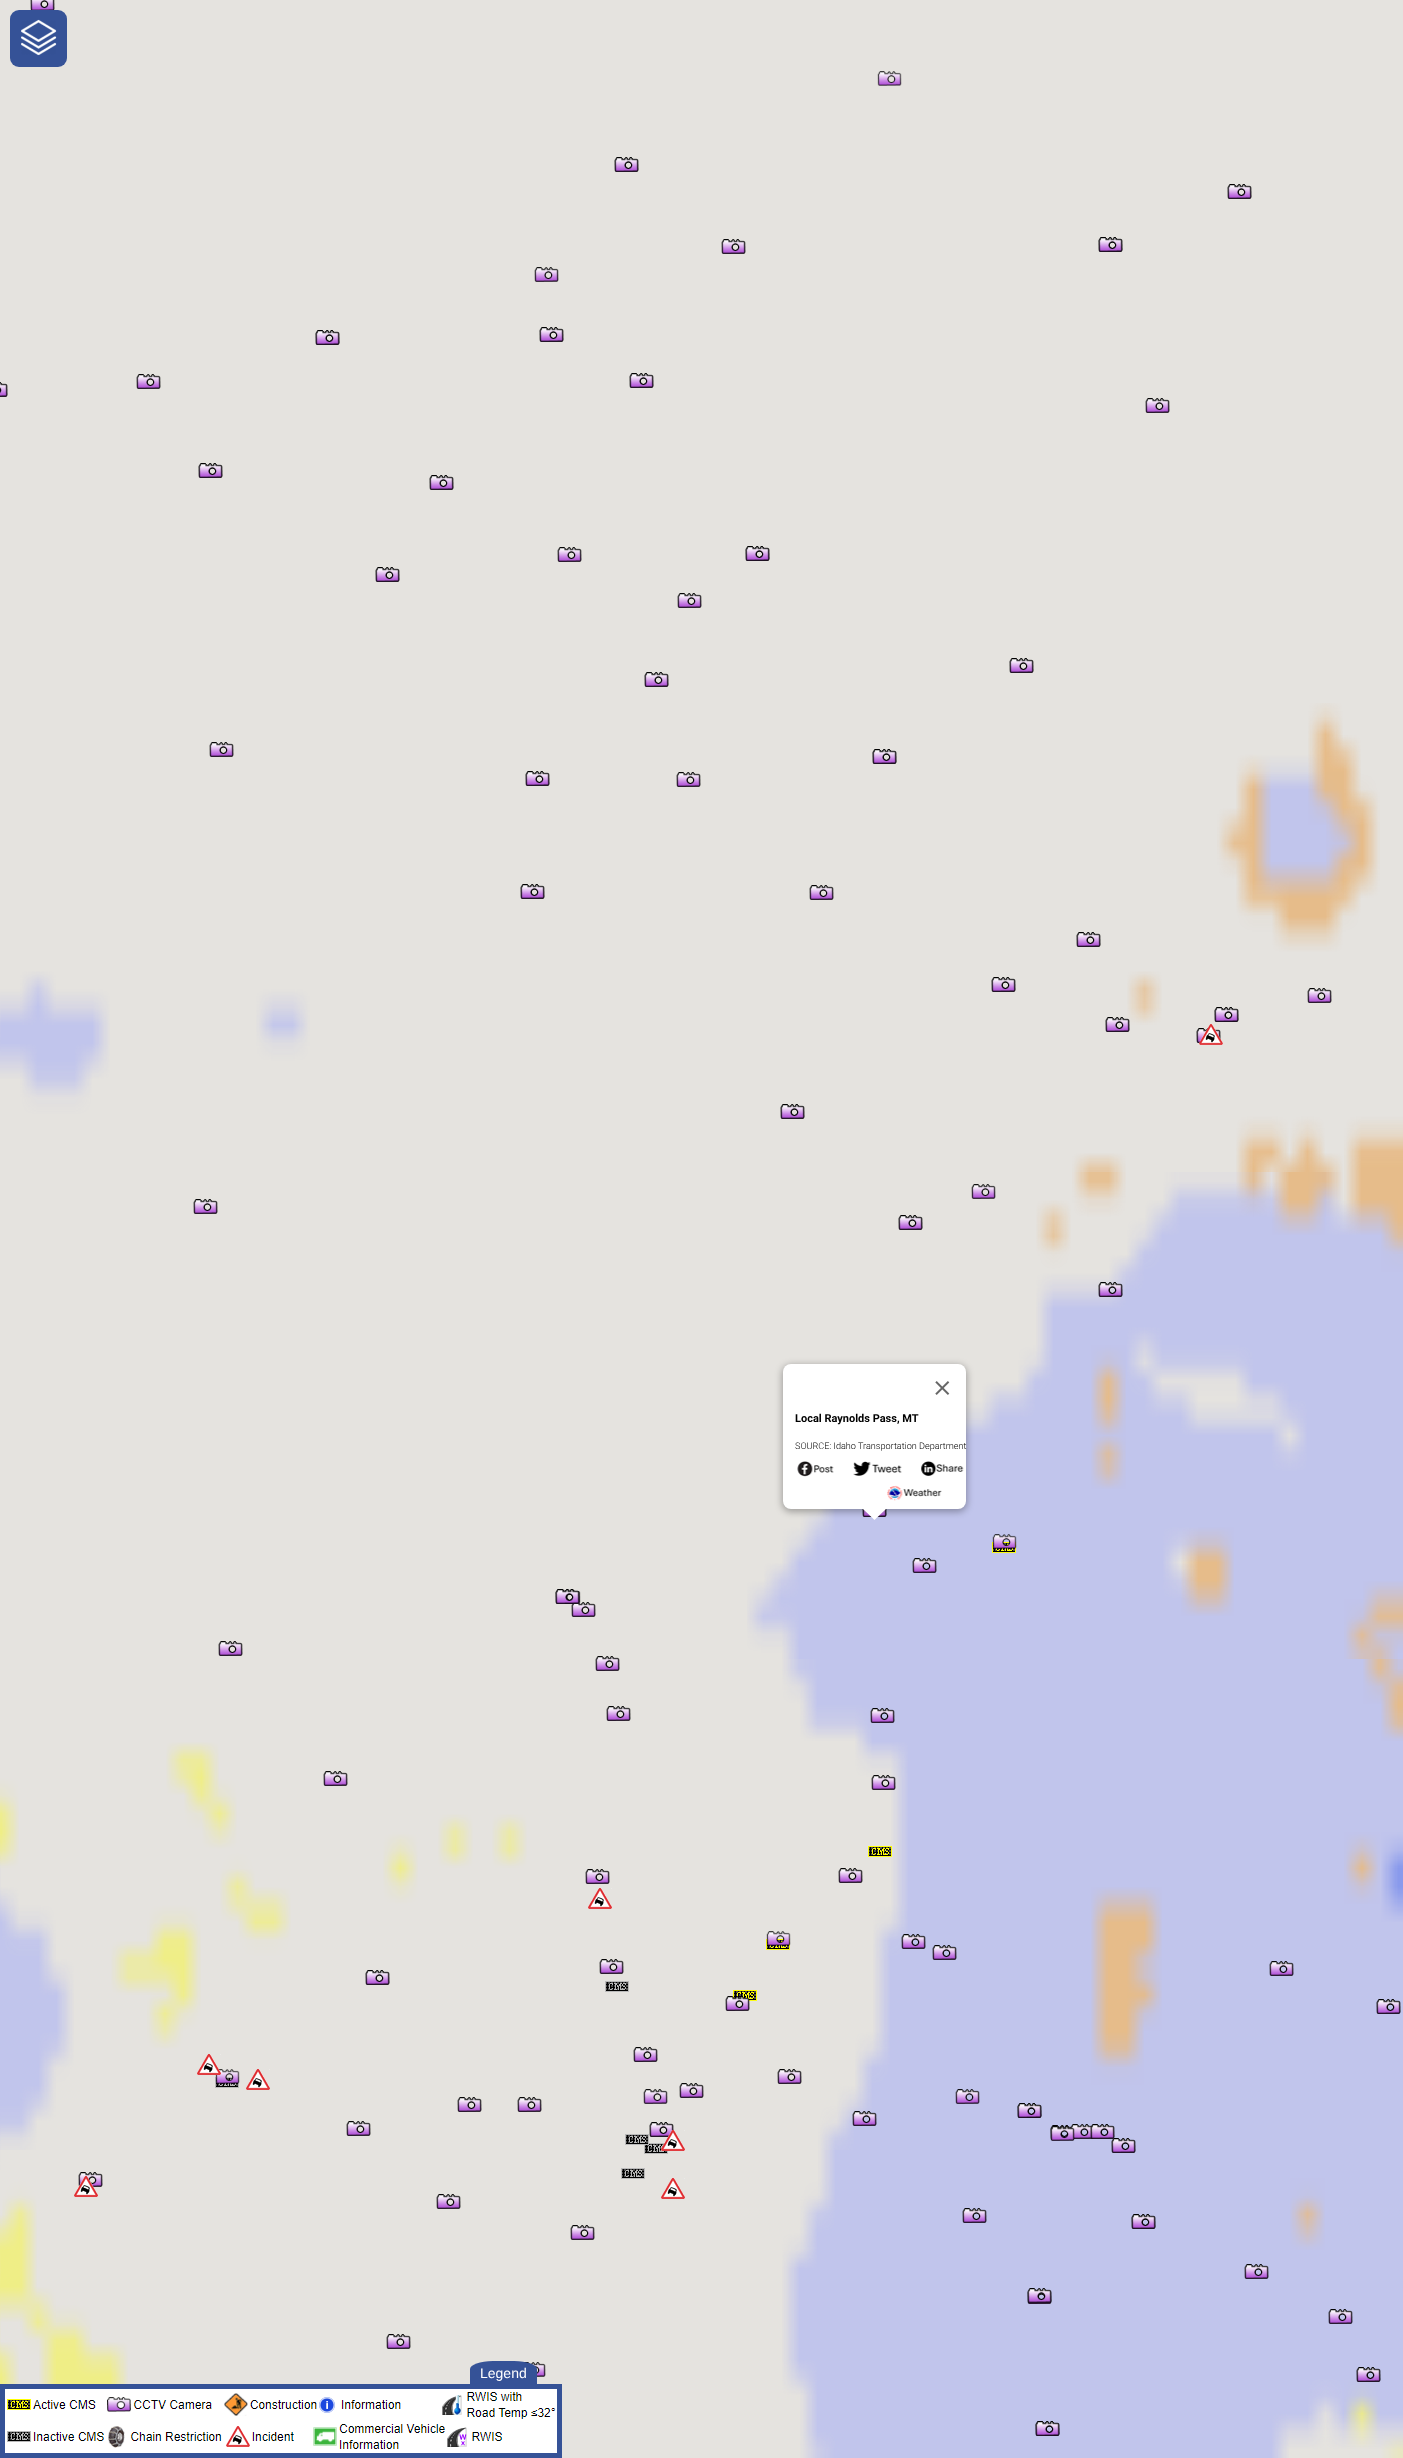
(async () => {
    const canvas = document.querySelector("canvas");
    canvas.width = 1403;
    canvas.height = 2458;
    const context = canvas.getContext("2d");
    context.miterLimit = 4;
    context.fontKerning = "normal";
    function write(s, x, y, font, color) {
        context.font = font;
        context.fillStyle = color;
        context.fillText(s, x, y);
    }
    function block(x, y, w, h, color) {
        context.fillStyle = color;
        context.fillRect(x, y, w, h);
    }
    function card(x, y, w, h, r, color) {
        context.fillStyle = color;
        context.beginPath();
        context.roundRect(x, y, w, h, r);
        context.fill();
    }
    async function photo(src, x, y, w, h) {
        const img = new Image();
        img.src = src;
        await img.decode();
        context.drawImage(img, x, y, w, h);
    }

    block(0, 0, 1403, 2458, "rgb(229, 227, 223)");
    card(10, 10, 57, 57, 9, "rgb(53, 82, 151)");
    await photo("media/1.png", 21, 19, 36, 37);
    await photo("media/2.png", 30, 0, 25, 10);
    await photo("media/3.png", 877, 71, 25, 15);
    await photo("media/4.png", 534, 157, 212, 125);
    await photo("media/5.png", 1098, 184, 154, 68);
    await photo("media/6.png", 0, 374, 223, 104);
    await photo("media/7.png", 315, 330, 139, 160);
    await photo("media/8.png", 539, 327, 217, 235);
    await photo("media/9.png", 1145, 398, 25, 15);
    await photo("media/10.png", 756, 546, 14, 15);
    await photo("media/11.png", 375, 567, 25, 15);
    await photo("media/38.png", 0, 703, 1403, 469);
    await photo("media/12.png", 525, 593, 177, 194);
    await photo("media/13.png", 872, 658, 140, 106);
    await photo("media/14.png", 1012, 658, 22, 15);
    await photo("media/9.png", 209, 742, 25, 15);
    await photo("media/11.png", 520, 884, 25, 15);
    await photo("media/15.png", 809, 885, 203, 107);
    await photo("media/16.png", 1012, 932, 227, 113);
    await photo("media/9.png", 1307, 988, 25, 15);
    await photo("media/9.png", 193, 1199, 25, 15);
    await photo("media/39.png", 747, 1172, 656, 487);
    await photo("media/17.png", 780, 1104, 216, 126);
    await photo("media/18.png", 1098, 1282, 25, 15);
    await photo("media/19.png", 862, 1509, 150, 64);
    await photo("media/20.png", 1012, 1535, 5, 18);
    await photo("media/21.png", 556, 1589, 23, 2);
    await photo("media/9.png", 218, 1641, 25, 15);
    await photo("media/40.png", 0, 1659, 1403, 491);
    await photo("media/22.png", 555, 1591, 76, 130);
    await photo("media/9.png", 323, 1771, 25, 15);
    await photo("media/23.png", 868, 1708, 28, 139);
    await photo("media/24.png", 197, 2054, 43, 34);
    await photo("media/25.png", 246, 1970, 236, 133);
    await photo("media/26.png", 517, 1869, 239, 234);
    await photo("media/27.png", 756, 1847, 224, 256);
    await photo("media/28.png", 1269, 1961, 132, 53);
    await photo("media/41.png", 0, 2150, 1403, 308);
    await photo("media/29.png", 74, 2172, 29, 25);
    await photo("media/30.png", 346, 2103, 136, 246);
    await photo("media/31.png", 517, 2103, 168, 137);
    await photo("media/32.png", 852, 2103, 135, 120);
    await photo("media/33.png", 1017, 2103, 251, 201);
    await photo("media/34.png", 1268, 2266, 85, 58);
    await photo("media/35.png", 524, 2362, 22, 15);
    await photo("media/36.png", 1356, 2367, 25, 15);
    await photo("media/37.png", 1035, 2421, 25, 15);
    context.fillStyle = "rgba(0, 0, 0, 0.3)";
    context.filter = "blur(3.5px)";
    context.beginPath();
    context.roundRect(782, 1365, 185, 147, 9);
    context.fill();
    context.filter = "none";
    card(783, 1364, 183, 145, 8, "rgb(255, 255, 255)");
    await photo("media/42.png", 935, 1381, 15, 14);
    write("Local Raynolds Pass, MT", 795, 1422, "bold 11px Roboto", "rgb(0, 0, 0)");
    write("SOURCE: Idaho Transportation Department", 795, 1449, "300 9.1px Roboto", "rgb(0, 0, 0)");
    await photo("media/43.png", 797, 1461, 37, 16);
    await photo("media/44.png", 853, 1461, 49, 15);
    await photo("media/45.png", 921, 1461, 43, 15);
    await photo("media/46.png", 887, 1485, 55, 16);
    context.fillStyle = "rgb(255, 255, 255)";
    context.beginPath();
    context.moveTo(863, 1508);
    context.lineTo(863, 1509);
    context.lineTo(874.5, 1520);
    context.lineTo(887, 1508);
    context.closePath();
    context.fill();
    block(0, 2384, 562, 74, "rgb(53, 82, 151)");
    context.beginPath();
    context.moveTo(493, 2361);
    context.lineTo(514, 2361);
    context.bezierCurveTo(527, 2361, 537, 2365, 537, 2369);
    context.lineTo(537, 2385);
    context.lineTo(470, 2385);
    context.lineTo(470, 2369);
    context.bezierCurveTo(470, 2365, 480, 2361, 493, 2361);
    context.closePath();
    context.fill();
    write("Legend", 480, 2378, "14px Liberation Sans", "rgb(255, 255, 255)");
    await photo("media/47.png", 5, 2389, 552, 64);
})();
